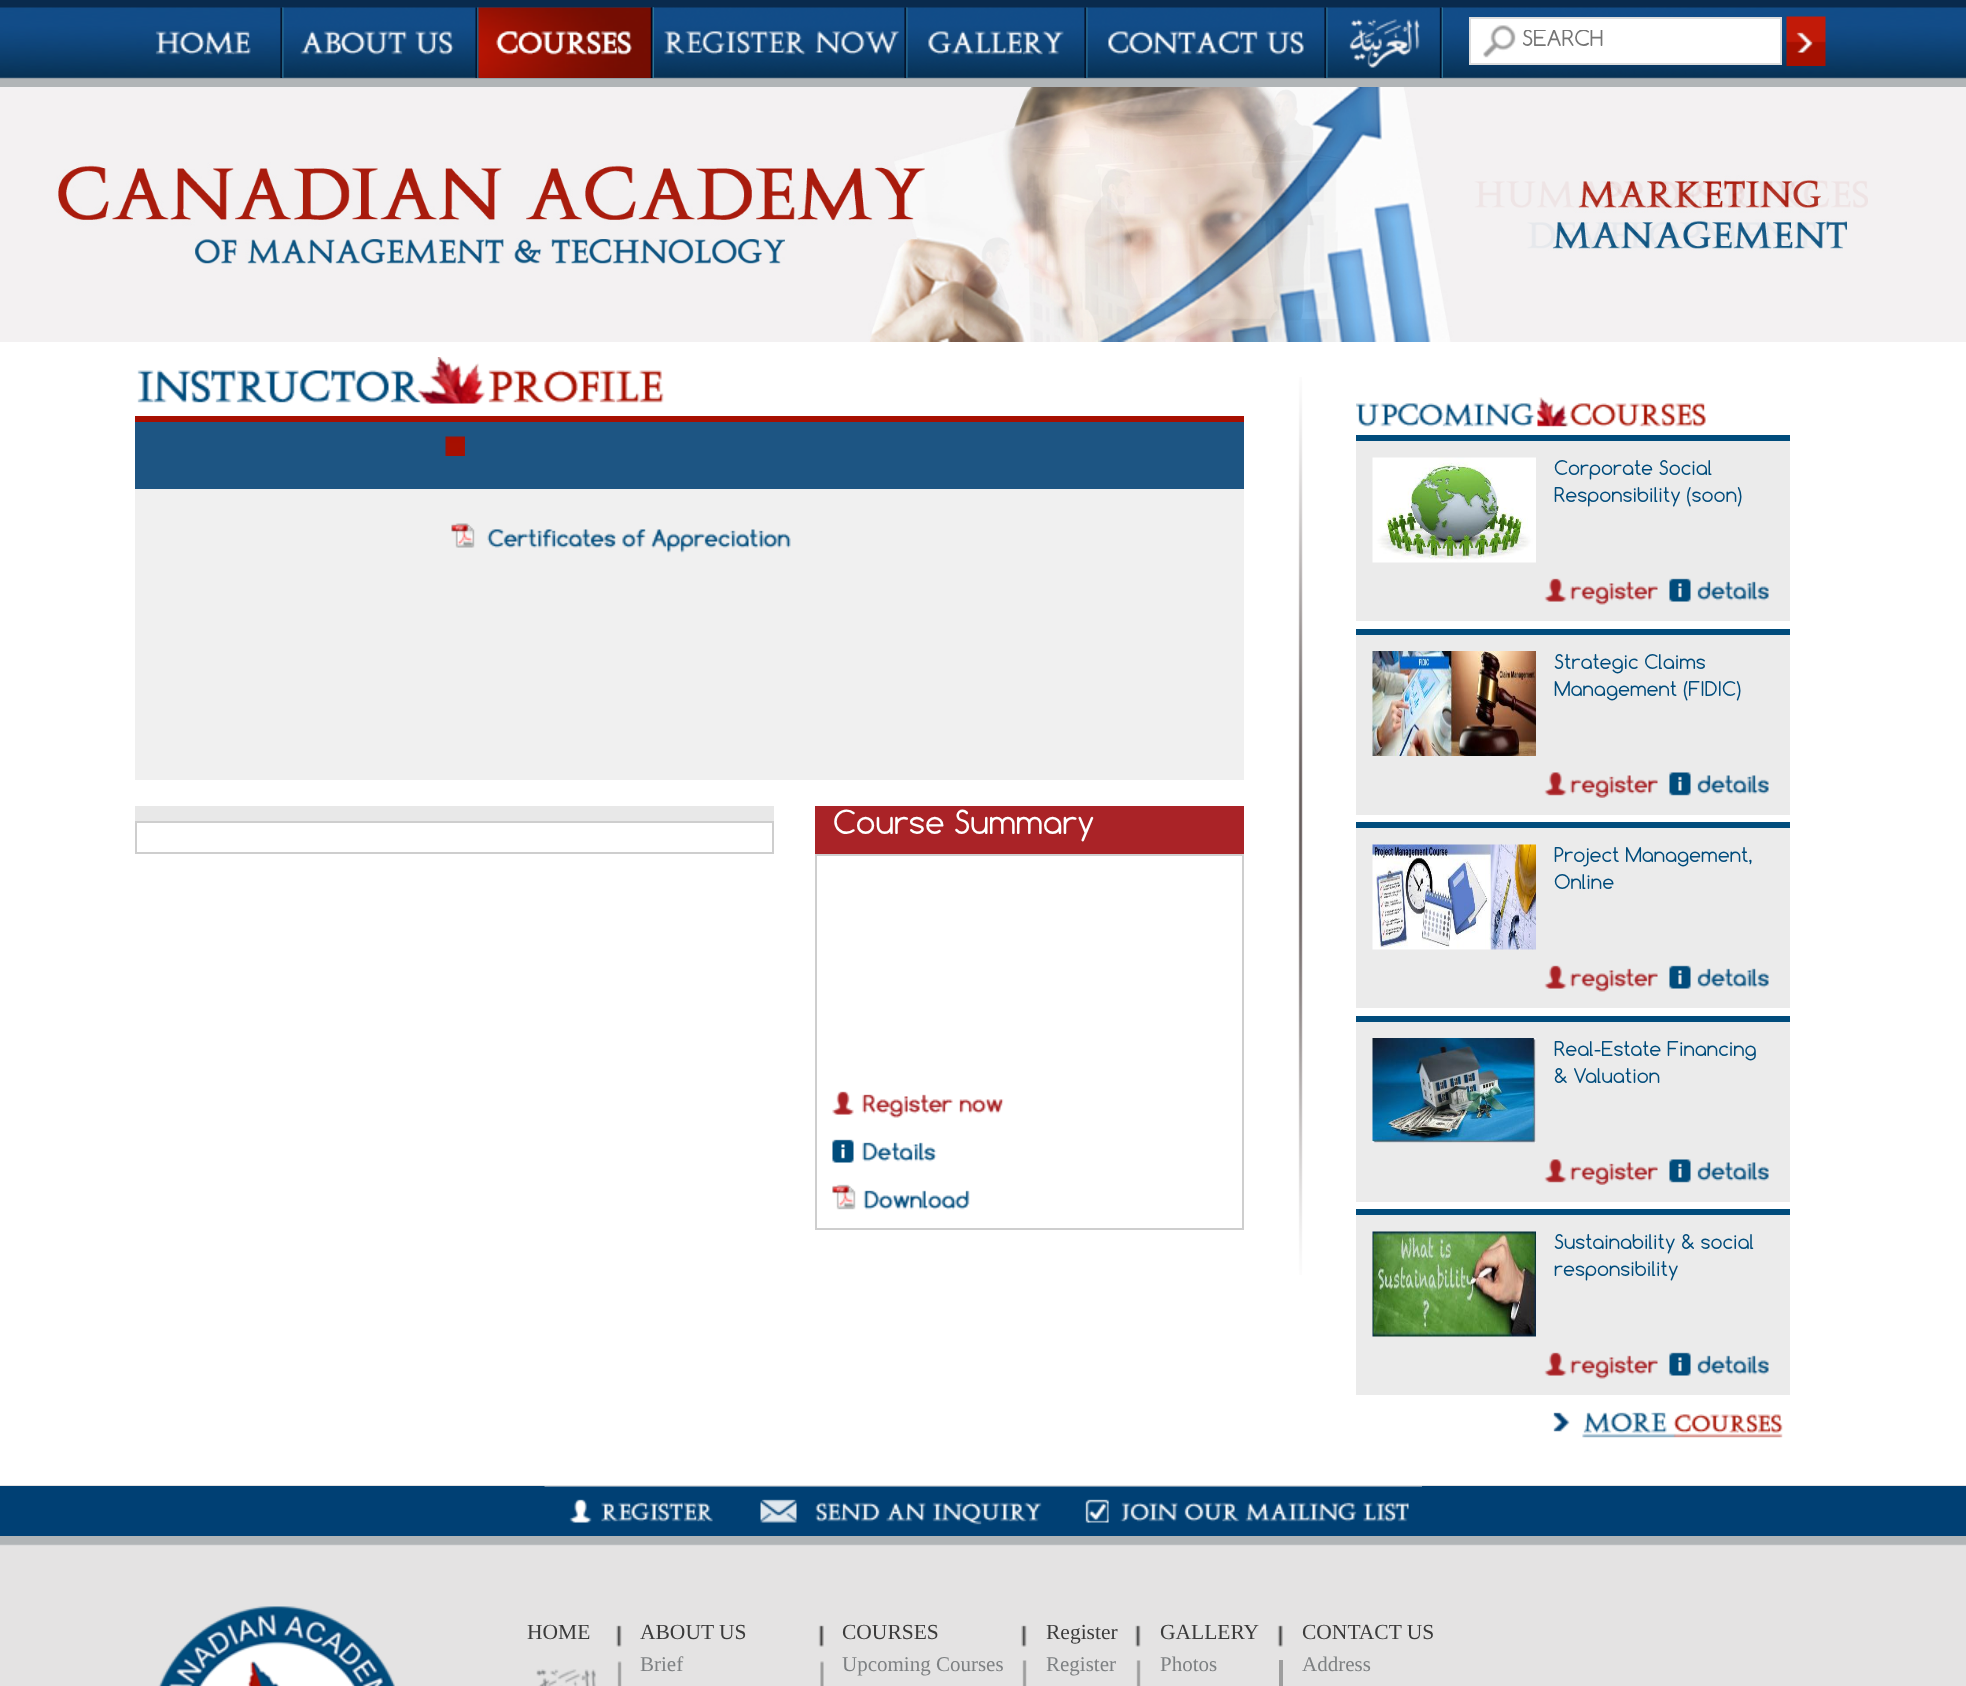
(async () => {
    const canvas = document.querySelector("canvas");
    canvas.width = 1966;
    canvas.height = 1686;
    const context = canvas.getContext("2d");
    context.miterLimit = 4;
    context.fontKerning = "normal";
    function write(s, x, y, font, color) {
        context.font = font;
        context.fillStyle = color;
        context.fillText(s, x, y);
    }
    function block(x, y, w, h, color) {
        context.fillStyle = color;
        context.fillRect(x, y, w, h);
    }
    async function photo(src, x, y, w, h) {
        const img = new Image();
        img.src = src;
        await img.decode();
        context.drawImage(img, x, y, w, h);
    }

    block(0, 0, 1966, 1686, "rgb(228, 227, 227)");
    await photo("media/1.png", 0, 0, 1966, 87);
    await photo("media/2.png", 155, 7, 129, 71);
    await photo("media/3.png", 300, 7, 179, 71);
    await photo("media/4.png", 478, 7, 176, 71);
    await photo("media/5.png", 496, 7, 158, 71);
    await photo("media/6.png", 664, 7, 244, 71);
    await photo("media/7.png", 928, 7, 160, 71);
    await photo("media/8.png", 1108, 7, 220, 71);
    await photo("media/9.png", 1349, 7, 94, 71);
    block(1471, 19, 309, 44, "rgb(255, 255, 255)");
    await photo("media/10.png", 1483, 25, 33, 33);
    context.strokeStyle = "rgb(222, 222, 222)";
    context.lineWidth = 2;
    context.strokeRect(1470, 18, 311, 46);
    context.save();
    context.beginPath();
    context.rect(1523, 30, 255, 23);
    context.clip();
    write("SEARCH", 1522, 46, "21.5px Comfortaa", "rgb(117, 117, 117)");
    context.restore();
    await photo("media/11.png", 1786, 16, 40, 50);
    await photo("media/12.png", 0, 87, 1966, 255);
    await photo("media/13.png", 897, 87, 971, 255);
    await photo("media/14.png", 898, 87, 923, 255);
    block(0, 342, 1966, 1143, "rgb(255, 255, 255)");
    await photo("media/15.png", 137, 357, 527, 47);
    block(135, 416, 1109, 6, "rgb(167, 15, 1)");
    block(135, 422, 1109, 67, "rgb(29, 85, 131)");
    await photo("media/16.png", 445, 436, 20, 20);
    block(135, 489, 1109, 291, "rgb(240, 240, 240)");
    await photo("media/17.png", 451, 523, 340, 30);
    block(135, 806, 639, 15, "rgb(232, 232, 232)");
    context.strokeStyle = "rgb(206, 206, 206)";
    context.strokeRect(136, 822, 637, 31);
    block(815, 806, 429, 48, "rgb(170, 35, 39)");
    write("Course Summary", 833, 834, "31.5px Comfortaa", "rgb(255, 255, 255)");
    context.strokeRect(816, 855, 427, 374);
    await photo("media/18.png", 832, 1091, 172, 27);
    await photo("media/19.png", 832, 1139, 105, 24);
    await photo("media/20.png", 832, 1184, 138, 26);
    await photo("media/21.png", 1298, 377, 5, 898);
    await photo("media/22.png", 1356, 397, 350, 30);
    block(1356, 435, 434, 6, "rgb(0, 76, 124)");
    block(1356, 441, 434, 180, "rgb(235, 235, 235)");
    await photo("media/23.png", 1372, 457, 164, 106);
    write("Corporate Social", 1554, 475, "19.25px Comfortaa", "rgb(0, 76, 124)");
    write("Responsibility (soon)", 1554, 502, "19.25px Comfortaa", "rgb(0, 76, 124)");
    await photo("media/24.png", 1544, 578, 114, 27);
    await photo("media/25.png", 1669, 578, 100, 24);
    block(1356, 629, 434, 6, "rgb(0, 76, 124)");
    block(1356, 635, 434, 180, "rgb(235, 235, 235)");
    await photo("media/26.png", 1372, 651, 164, 105);
    write("Strategic Claims", 1554, 669, "19.25px Comfortaa", "rgb(0, 76, 124)");
    write("Management (FIDIC)", 1554, 696, "19.25px Comfortaa", "rgb(0, 76, 124)");
    await photo("media/27.png", 1544, 772, 114, 26);
    await photo("media/28.png", 1669, 772, 100, 24);
    block(1356, 822, 434, 6, "rgb(0, 76, 124)");
    block(1356, 828, 434, 180, "rgb(235, 235, 235)");
    await photo("media/29.png", 1372, 844, 164, 106);
    write("Project Management,", 1554, 862, "19.25px Comfortaa", "rgb(0, 76, 124)");
    write("Online", 1554, 889, "19.25px Comfortaa", "rgb(0, 76, 124)");
    await photo("media/24.png", 1544, 965, 114, 27);
    await photo("media/25.png", 1669, 965, 100, 24);
    block(1356, 1016, 434, 6, "rgb(0, 76, 124)");
    block(1356, 1022, 434, 180, "rgb(235, 235, 235)");
    await photo("media/30.png", 1372, 1038, 164, 105);
    write("Real-Estate Financing", 1554, 1056, "19.25px Comfortaa", "rgb(0, 76, 124)");
    write("& Valuation", 1554, 1083, "19.25px Comfortaa", "rgb(0, 76, 124)");
    await photo("media/27.png", 1544, 1159, 114, 26);
    await photo("media/28.png", 1669, 1159, 100, 24);
    block(1356, 1209, 434, 6, "rgb(0, 76, 124)");
    block(1356, 1215, 434, 180, "rgb(235, 235, 235)");
    await photo("media/31.png", 1372, 1231, 164, 106);
    write("Sustainability & social", 1554, 1249, "19.25px Comfortaa", "rgb(0, 76, 124)");
    write("responsibility", 1554, 1276, "19.25px Comfortaa", "rgb(0, 76, 124)");
    await photo("media/24.png", 1544, 1352, 114, 27);
    await photo("media/25.png", 1669, 1352, 100, 24);
    await photo("media/32.png", 1553, 1412, 230, 26);
    block(0, 1486, 1966, 50, "rgb(0, 64, 116)");
    await photo("media/33.png", 544, 1486, 189, 37);
    await photo("media/34.png", 733, 1486, 334, 39);
    await photo("media/35.png", 1066, 1486, 356, 37);
    await photo("media/36.png", 0, 1536, 1966, 10);
    await photo("media/37.png", 158, 1606, 237, 80);
    write("HOME", 527, 1639, "21.5px Liberation Serif", "rgb(59, 59, 59)");
    await photo("media/38.png", 536, 1669, 60, 17);
    await photo("media/39.png", 616, 1625, 6, 22);
    await photo("media/40.png", 617, 1661, 5, 25);
    write("ABOUT US", 640, 1639, "21.5px Liberation Serif", "rgb(59, 59, 59)");
    write("Brief", 640, 1671, "21px Liberation Serif", "rgb(126, 129, 131)");
    await photo("media/41.png", 818, 1625, 6, 22);
    await photo("media/42.png", 820, 1661, 4, 25);
    write("COURSES", 842, 1639, "21.5px Liberation Serif", "rgb(59, 59, 59)");
    write("Upcoming Courses", 842, 1671, "21px Liberation Serif", "rgb(126, 129, 131)");
    await photo("media/43.png", 1021, 1625, 6, 22);
    await photo("media/44.png", 1022, 1660, 5, 26);
    write("Register", 1046, 1639, "21.5px Liberation Serif", "rgb(59, 59, 59)");
    write("Register", 1046, 1671, "21px Liberation Serif", "rgb(126, 129, 131)");
    await photo("media/39.png", 1135, 1625, 6, 22);
    await photo("media/44.png", 1136, 1660, 5, 26);
    write("GALLERY", 1160, 1639, "21.5px Liberation Serif", "rgb(59, 59, 59)");
    write("Photos", 1160, 1671, "21px Liberation Serif", "rgb(126, 129, 131)");
    await photo("media/41.png", 1277, 1625, 6, 22);
    block(1279, 1660, 4, 26, "rgb(158, 158, 158)");
    write("CONTACT US", 1302, 1639, "21.5px Liberation Serif", "rgb(59, 59, 59)");
    write("Address", 1302, 1671, "21px Liberation Serif", "rgb(126, 129, 131)");
})();
